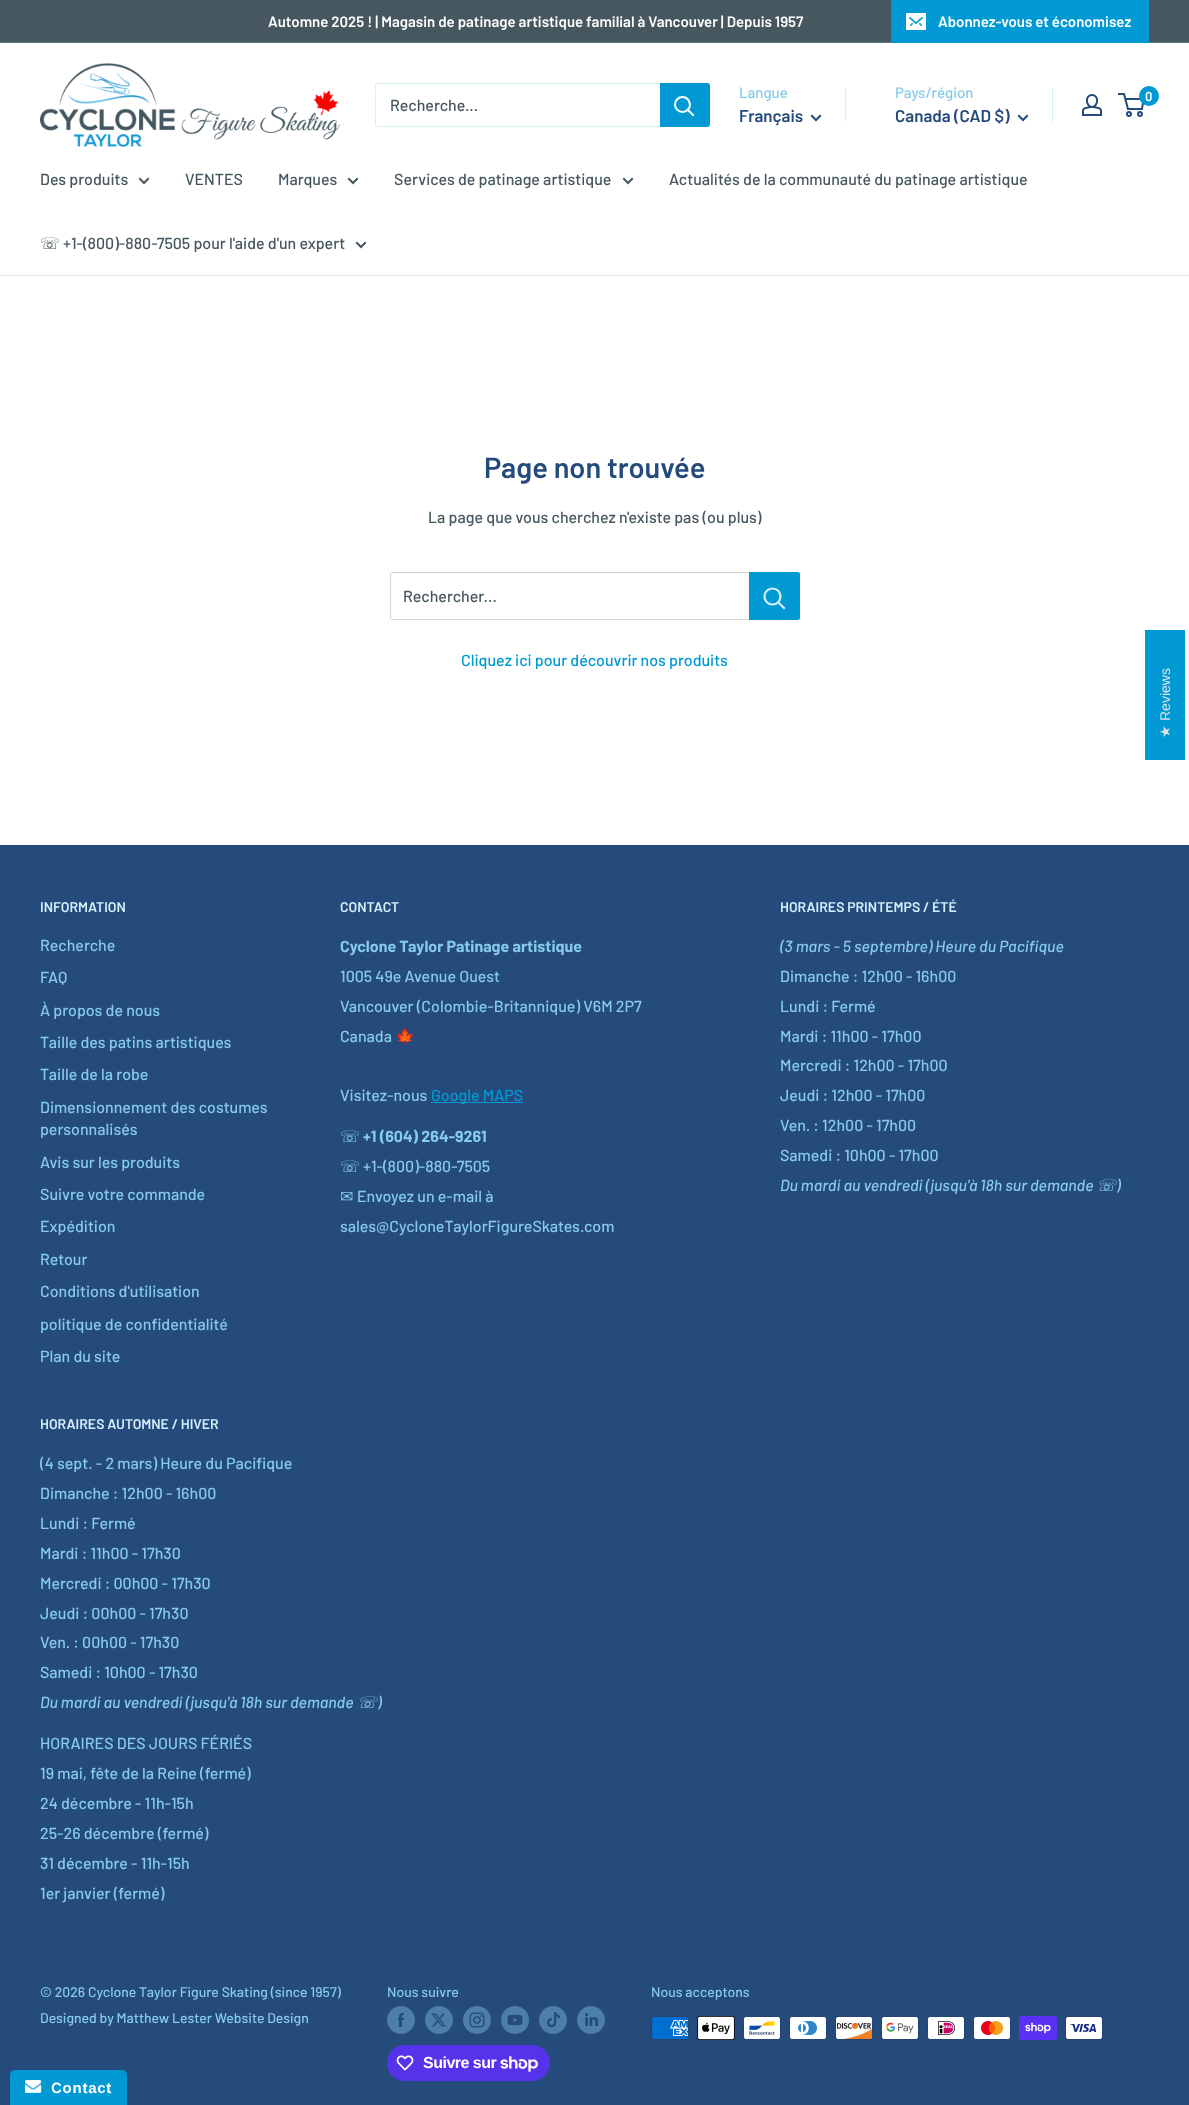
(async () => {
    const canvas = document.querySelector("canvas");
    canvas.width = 1189;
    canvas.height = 2105;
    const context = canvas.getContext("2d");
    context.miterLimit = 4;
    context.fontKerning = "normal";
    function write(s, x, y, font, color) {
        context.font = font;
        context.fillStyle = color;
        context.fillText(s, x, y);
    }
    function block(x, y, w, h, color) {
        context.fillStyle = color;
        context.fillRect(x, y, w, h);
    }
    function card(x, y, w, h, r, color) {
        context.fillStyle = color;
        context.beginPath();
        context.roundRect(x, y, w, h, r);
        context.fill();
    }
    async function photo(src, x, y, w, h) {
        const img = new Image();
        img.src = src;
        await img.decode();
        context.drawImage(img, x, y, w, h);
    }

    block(0, 0, 1189, 2105, "rgb(255, 255, 255)");
    block(0, 0, 1189, 42, "rgb(70, 87, 95)");
    block(0, 42, 1189, 1, "rgb(89, 122, 137)");
    write("Automne 2025 ! | Magasin de patinage artistique familial à Vancouver | Depuis 1957", 268, 27, "600 15px Barlow", "rgb(255, 255, 255)");
    block(891, 0, 258, 43, "rgb(0, 153, 211)");
    await photo("media/1.png", 906, 13, 20, 17);
    write("Abonnez-vous et économisez", 938, 27, "600 15px Barlow", "rgb(255, 255, 255)");
    await photo("media/2.png", 40, 63, 300, 84);
    context.fillStyle = "rgb(219, 239, 249)";
    context.beginPath();
    context.moveTo(376, 126);
    context.bezierCurveTo(376, 127, 377, 127, 378, 127);
    context.lineTo(707, 127);
    context.bezierCurveTo(709, 127, 710, 126, 710, 124);
    context.lineTo(710, 86);
    context.bezierCurveTo(710, 85, 710, 84, 709, 84);
    context.lineTo(709, 117);
    context.bezierCurveTo(709, 119, 711, 126, 706, 126);
    context.closePath();
    context.fill();
    context.beginPath();
    context.moveTo(379, 84);
    context.lineTo(709, 84);
    context.bezierCurveTo(709, 83, 708, 83, 707, 83);
    context.lineTo(378, 83);
    context.bezierCurveTo(376, 83, 375, 84, 375, 86);
    context.lineTo(375, 124);
    context.bezierCurveTo(375, 125, 375, 126, 376, 126);
    context.lineTo(376, 93);
    context.bezierCurveTo(376, 91, 374, 84, 379, 84);
    context.closePath();
    context.fill();
    write("Recherche...", 390, 111, "500 16px Barlow", "rgb(70, 87, 95)");
    context.fillStyle = "rgb(0, 153, 211)";
    context.beginPath();
    context.roundRect(660, 83, 50, 44, [0, 3, 3, 0]);
    context.fill();
    context.beginPath();
    context.moveTo(693, 115);
    context.lineTo(688, 110);
    context.strokeStyle = "rgb(255, 255, 255)";
    context.lineWidth = 2;
    context.lineCap = "square";
    context.stroke();
    context.beginPath();
    context.arc(682.5, 104.5, 7.5, 0, Math.PI * 2);
    context.stroke();
    write("Langue", 739, 98, "500 15px Barlow", "rgb(134, 203, 234)");
    write("Français", 739, 122, "600 17px Barlow", "rgb(37, 75, 124)");
    context.beginPath();
    context.moveTo(820, 116);
    context.lineTo(816, 120);
    context.lineTo(812, 116);
    context.strokeStyle = "rgb(37, 75, 124)";
    context.stroke();
    block(845, 88, 1, 34, "rgb(219, 239, 249)");
    write("Pays/région", 895, 98, "500 15px Barlow", "rgb(134, 203, 234)");
    write("Canada (CAD $)", 895, 122, "600 17px Barlow", "rgb(37, 75, 124)");
    context.beginPath();
    context.moveTo(1027, 116);
    context.lineTo(1023, 120);
    context.lineTo(1019, 116);
    context.stroke();
    block(1052, 88, 1, 34, "rgb(219, 239, 249)");
    await photo("media/3.png", 1082, 94, 20, 22);
    context.beginPath();
    context.arc(1129, 114, 2, 0, Math.PI * 2);
    context.stroke();
    context.beginPath();
    context.arc(1140, 114, 2, 0, Math.PI * 2);
    context.stroke();
    context.beginPath();
    context.moveTo(1125.5, 99);
    context.lineTo(1143.5, 99);
    context.lineTo(1142, 109);
    context.lineTo(1128, 109);
    context.lineTo(1124, 94);
    context.lineTo(1118, 94);
    context.lineCap = "butt";
    context.stroke();
    context.fillStyle = "rgb(0, 153, 211)";
    context.beginPath();
    context.arc(1149, 96, 10, 0, Math.PI * 2);
    context.fill();
    write("0", 1145, 101, "600 13px Barlow", "rgb(255, 255, 255)");
    block(0, 275, 1189, 1, "rgb(225, 227, 228)");
    write("Des produits", 40, 185, "500 16px Barlow", "rgb(70, 87, 95)");
    context.beginPath();
    context.moveTo(148, 179);
    context.lineTo(144, 183);
    context.lineTo(140, 179);
    context.strokeStyle = "rgb(70, 87, 95)";
    context.lineCap = "square";
    context.stroke();
    write("VENTES", 185, 185, "500 16px Barlow", "rgb(70, 87, 95)");
    write("Marques", 278, 185, "500 16px Barlow", "rgb(70, 87, 95)");
    context.beginPath();
    context.moveTo(357, 179);
    context.lineTo(353, 183);
    context.lineTo(349, 179);
    context.stroke();
    write("Services de patinage artistique", 394, 185, "500 16px Barlow", "rgb(70, 87, 95)");
    context.beginPath();
    context.moveTo(632, 179);
    context.lineTo(628, 183);
    context.lineTo(624, 179);
    context.stroke();
    write("Actualités de la communauté du patinage artistique", 669, 185, "500 16px Barlow", "rgb(70, 87, 95)");
    write("☏", 40, 249, "16px DejaVu Sans", "rgb(70, 87, 95)");
    write("+1-(800)-880-7505 pour l'aide d'un expert", 63, 249, "500 16px Barlow", "rgb(70, 87, 95)");
    context.beginPath();
    context.moveTo(365, 243);
    context.lineTo(361, 247);
    context.lineTo(357, 243);
    context.stroke();
    write("Page non trouvée", 484, 478, "600 29px Barlow", "rgb(37, 75, 124)");
    write("La page que vous cherchez n'existe pas (ou plus)", 428, 523, "500 16px Barlow", "rgb(70, 87, 95)");
    context.fillStyle = "rgb(248, 248, 248)";
    context.beginPath();
    context.moveTo(392, 574);
    context.lineTo(749, 574);
    context.lineTo(749, 573);
    context.lineTo(392, 573);
    context.bezierCurveTo(391, 573, 391, 574, 391, 575);
    context.bezierCurveTo(391, 574, 391, 574, 392, 574);
    context.closePath();
    context.fill();
    block(391, 572, 358, 1, "rgb(212, 214, 216)");
    block(391, 619, 358, 1, "rgb(212, 214, 216)");
    block(390, 573, 1, 46, "rgb(212, 214, 216)");
    write("Rechercher...", 403, 602, "500 16px Barlow", "rgb(70, 87, 95)");
    context.fillStyle = "rgb(0, 153, 211)";
    context.beginPath();
    context.roundRect(749, 572, 51, 48, [0, 2, 2, 0]);
    context.fill();
    context.beginPath();
    context.moveTo(784, 608);
    context.lineTo(778.5, 602.5);
    context.strokeStyle = "rgb(212, 240, 253)";
    context.lineWidth = 2.2;
    context.stroke();
    context.beginPath();
    context.arc(772.5, 596.5, 8, 0, Math.PI * 2);
    context.stroke();
    write("Cliquez ici pour découvrir nos produits", 461, 666, "500 16px Barlow", "rgb(0, 153, 211)");
    block(1145, 630, 40, 130, "rgb(0, 153, 211)");
    context.font = "14px Liberation Sans";
    context.fillStyle = "rgb(225, 227, 228)";
    context.save();
    context.translate(1170, 721);
    context.rotate(-90 * Math.PI / 180);
    context.fillText("Reviews", 0, 0);
    context.restore();
    context.font = "14px DejaVu Sans";
    context.save();
    context.translate(1170, 738);
    context.rotate(-90 * Math.PI / 180);
    context.fillText("★", 0, 0);
    context.restore();
    block(0, 845, 1189, 1260, "rgb(37, 75, 124)");
    write("INFORMATION", 40, 912, "600 14px Barlow", "rgb(212, 240, 253)");
    write("Recherche", 40, 951, "500 16px Barlow", "rgb(134, 203, 234)");
    write("FAQ", 40, 983, "500 16px Barlow", "rgb(134, 203, 234)");
    write("À propos de nous", 40, 1016, "500 16px Barlow", "rgb(134, 203, 234)");
    write("Taille des patins artistiques", 40, 1048, "500 16px Barlow", "rgb(134, 203, 234)");
    write("Taille de la robe", 40, 1080, "500 16px Barlow", "rgb(134, 203, 234)");
    write("Dimensionnement des costumes", 40, 1113, "500 16px Barlow", "rgb(134, 203, 234)");
    write("personnalisés", 40, 1135, "500 16px Barlow", "rgb(134, 203, 234)");
    write("Avis sur les produits", 40, 1168, "500 16px Barlow", "rgb(134, 203, 234)");
    write("Suivre votre commande", 40, 1200, "500 16px Barlow", "rgb(134, 203, 234)");
    write("Expédition", 40, 1232, "500 16px Barlow", "rgb(134, 203, 234)");
    write("Retour", 40, 1265, "500 16px Barlow", "rgb(134, 203, 234)");
    write("Conditions d'utilisation", 40, 1297, "500 16px Barlow", "rgb(134, 203, 234)");
    write("politique de confidentialité", 40, 1330, "500 16px Barlow", "rgb(134, 203, 234)");
    write("Plan du site", 40, 1362, "500 16px Barlow", "rgb(134, 203, 234)");
    write("CONTACT", 340, 912, "600 14px Barlow", "rgb(212, 240, 253)");
    write("Cyclone Taylor Patinage artistique", 340, 952, "bold 16px Barlow", "rgb(134, 203, 234)");
    write("1005 49e Avenue Ouest", 340, 982, "500 16px Barlow", "rgb(134, 203, 234)");
    write("Vancouver (Colombie-Britannique) V6M 2P7", 340, 1012, "500 16px Barlow", "rgb(134, 203, 234)");
    write("Canada", 340, 1042, "500 16px Barlow", "rgb(134, 203, 234)");
    write("🍁", 395, 1042, "16px Noto Color Emoji", "rgb(134, 203, 234)");
    write("Visitez-nous", 340, 1101, "500 16px Barlow", "rgb(134, 203, 234)");
    block(431, 1102, 92, 1, "rgb(0, 153, 211)");
    write("Google MAPS", 431, 1101, "500 16px Barlow", "rgb(0, 153, 211)");
    write("☏", 340, 1142, "16px DejaVu Sans", "rgb(134, 203, 234)");
    write("+1 (604) 264-9261", 363, 1142, "bold 16px Barlow", "rgb(134, 203, 234)");
    write("☏", 340, 1172, "16px DejaVu Sans", "rgb(134, 203, 234)");
    write("+1-(800)-880-7505", 363, 1172, "500 16px Barlow", "rgb(134, 203, 234)");
    write("✉", 340, 1202, "16px DejaVu Sans", "rgb(134, 203, 234)");
    write("Envoyez un e-mail à", 357, 1202, "500 16px Barlow", "rgb(134, 203, 234)");
    write("sales@CycloneTaylorFigureSkates.com", 340, 1232, "500 16px Barlow", "rgb(134, 203, 234)");
    write("HORAIRES PRINTEMPS / ÉTÉ", 780, 912, "600 14px Barlow", "rgb(212, 240, 253)");
    write("(3 mars - 5 septembre) Heure du Pacifique", 780, 952, "italic 500 16px Barlow", "rgb(134, 203, 234)");
    write("Dimanche : 12h00 - 16h00", 780, 982, "500 16px Barlow", "rgb(134, 203, 234)");
    write("Lundi : Fermé", 780, 1012, "500 16px Barlow", "rgb(134, 203, 234)");
    write("Mardi : 11h00 - 17h00", 780, 1042, "500 16px Barlow", "rgb(134, 203, 234)");
    write("Mercredi : 12h00 - 17h00", 780, 1071, "500 16px Barlow", "rgb(134, 203, 234)");
    write("Jeudi : 12h00 - 17h00", 780, 1101, "500 16px Barlow", "rgb(134, 203, 234)");
    write("Ven. : 12h00 - 17h00", 780, 1131, "500 16px Barlow", "rgb(134, 203, 234)");
    write("Samedi : 10h00 - 17h00", 780, 1161, "500 16px Barlow", "rgb(134, 203, 234)");
    write("Du mardi au vendredi (jusqu'à 18h sur demande", 780, 1191, "italic 500 16px Barlow", "rgb(134, 203, 234)");
    write("☏", 1096, 1191, "italic 16px DejaVu Sans", "rgb(134, 203, 234)");
    write(")", 1116, 1191, "italic 500 16px Barlow", "rgb(134, 203, 234)");
    write("HORAIRES AUTOMNE / HIVER", 40, 1429, "600 14px Barlow", "rgb(212, 240, 253)");
    write("(4 sept. - 2 mars) Heure du Pacifique", 40, 1469, "500 16px Barlow", "rgb(134, 203, 234)");
    write("Dimanche : 12h00 - 16h00", 40, 1499, "500 16px Barlow", "rgb(134, 203, 234)");
    write("Lundi : Fermé", 40, 1529, "500 16px Barlow", "rgb(134, 203, 234)");
    write("Mardi : 11h00 - 17h30", 40, 1559, "500 16px Barlow", "rgb(134, 203, 234)");
    write("Mercredi : 00h00 - 17h30", 40, 1589, "500 16px Barlow", "rgb(134, 203, 234)");
    write("Jeudi : 00h00 - 17h30", 40, 1619, "500 16px Barlow", "rgb(134, 203, 234)");
    write("Ven. : 00h00 - 17h30", 40, 1648, "500 16px Barlow", "rgb(134, 203, 234)");
    write("Samedi : 10h00 - 17h30", 40, 1678, "500 16px Barlow", "rgb(134, 203, 234)");
    write("Du mardi au vendredi (jusqu'à 18h sur demande", 40, 1708, "italic 500 16px Barlow", "rgb(134, 203, 234)");
    write("☏", 357, 1708, "italic 16px DejaVu Sans", "rgb(134, 203, 234)");
    write(")", 377, 1708, "italic 500 16px Barlow", "rgb(134, 203, 234)");
    write("HORAIRES DES JOURS FÉRIÉS", 40, 1749, "500 16px Barlow", "rgb(134, 203, 234)");
    write("19 mai, fête de la Reine (fermé)", 40, 1779, "500 16px Barlow", "rgb(134, 203, 234)");
    write("24 décembre - 11h-15h", 40, 1809, "500 16px Barlow", "rgb(134, 203, 234)");
    write("25-26 décembre (fermé)", 40, 1839, "500 16px Barlow", "rgb(134, 203, 234)");
    write("31 décembre - 11h-15h", 40, 1869, "500 16px Barlow", "rgb(134, 203, 234)");
    write("1er janvier (fermé)", 40, 1899, "500 16px Barlow", "rgb(134, 203, 234)");
    write("© 2026 Cyclone Taylor Figure Skating (since 1957)", 40, 1997, "500 14px Barlow", "rgb(134, 203, 234)");
    write("Designed by Matthew Lester Website Design", 40, 2023, "500 14px Barlow", "rgb(134, 203, 234)");
    write("Nous suivre", 387, 1997, "500 14px Barlow", "rgb(134, 203, 234)");
    await photo("media/4.png", 387, 2006, 28, 28);
    await photo("media/5.png", 425, 2006, 28, 28);
    await photo("media/6.png", 463, 2006, 28, 28);
    await photo("media/7.png", 501, 2006, 28, 28);
    await photo("media/8.png", 539, 2006, 28, 28);
    await photo("media/9.png", 577, 2006, 28, 28);
    card(387, 2045, 163, 36, 18, "rgb(84, 51, 235)");
    await photo("media/10.png", 396, 2055, 18, 16);
    context.letterSpacing = "-0.5px";
    write("Suivre sur", 423, 2068, "bold 16px Liberation Sans", "rgb(255, 255, 255)");
    await photo("media/11.png", 500, 2056, 38, 16);
    context.letterSpacing = "0px";
    write("Nous acceptons", 651, 1997, "500 14px Barlow", "rgb(134, 203, 234)");
    await photo("media/12.png", 651, 2016, 38, 24);
    await photo("media/13.png", 697, 2016, 38, 24);
    await photo("media/14.png", 743, 2016, 38, 24);
    await photo("media/15.png", 789, 2016, 38, 24);
    await photo("media/16.png", 835, 2016, 38, 24);
    await photo("media/17.png", 881, 2016, 38, 24);
    await photo("media/18.png", 927, 2016, 38, 24);
    await photo("media/19.png", 973, 2016, 38, 24);
    await photo("media/20.png", 1019, 2016, 38, 24);
    await photo("media/21.png", 1065, 2016, 38, 24);
    context.fillStyle = "rgb(0, 153, 211)";
    context.beginPath();
    context.roundRect(10, 2070, 117, 35, [5, 5, 0, 0]);
    context.fill();
    await photo("media/22.png", 25, 2080, 17, 13);
    context.letterSpacing = "0.75px";
    write("Contact", 51, 2093, "bold 15px Liberation Sans", "rgb(255, 255, 255)");
})();
